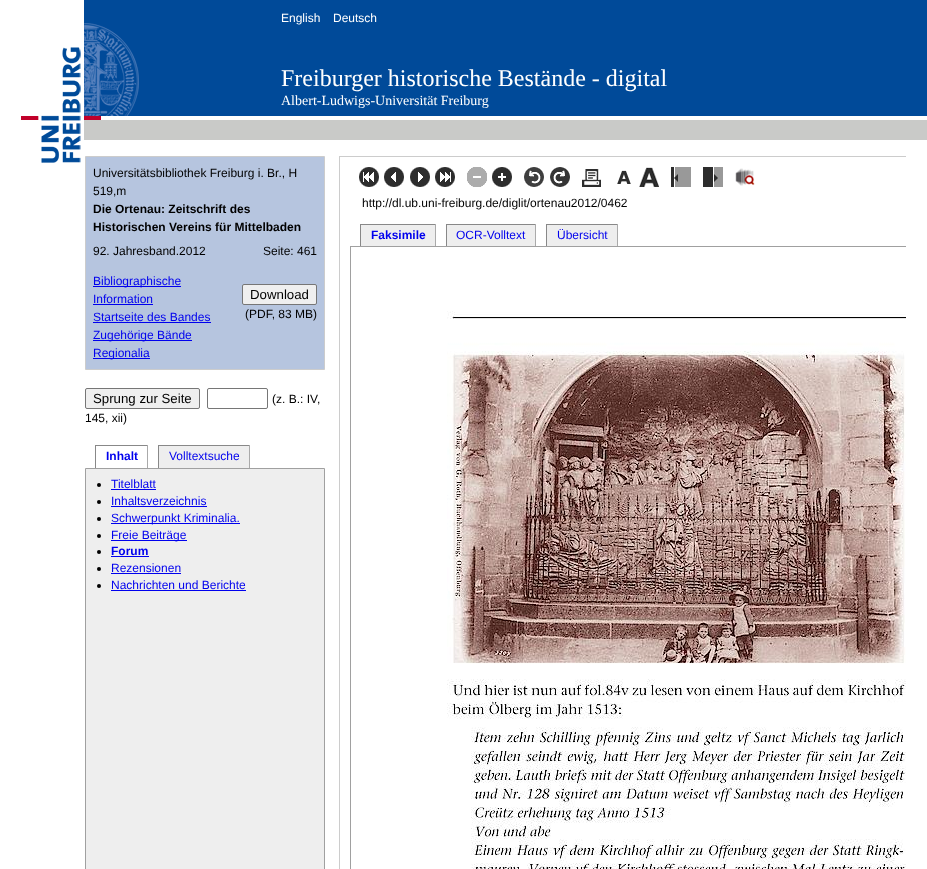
(async () => {
    const canvas = document.querySelector("canvas");
    canvas.width = 927;
    canvas.height = 869;
    const context = canvas.getContext("2d");
    context.miterLimit = 4;
    context.fontKerning = "normal";
    function write(s, x, y, font, color) {
        context.font = font;
        context.fillStyle = color;
        context.fillText(s, x, y);
    }
    function block(x, y, w, h, color) {
        context.fillStyle = color;
        context.fillRect(x, y, w, h);
    }
    async function photo(src, x, y, w, h) {
        const img = new Image();
        img.src = src;
        await img.decode();
        context.drawImage(img, x, y, w, h);
    }

    block(0, 0, 927, 869, "rgb(255, 255, 255)");
    await photo("media/1.png", 84, 0, 843, 140);
    await photo("media/2.png", 21, 47, 60, 116);
    await photo("media/3.png", 84, 23, 55, 97);
    write("English", 281, 22, "12px Liberation Sans", "rgb(255, 255, 255)");
    write("Deutsch", 333, 22, "12px Liberation Sans", "rgb(255, 255, 255)");
    write("Freiburger historische Bestände - digital", 281, 86, "24px Liberation Serif", "rgb(255, 255, 255)");
    write("Albert-Ludwigs-Universität Freiburg", 281, 105, "14px Liberation Serif", "rgb(255, 255, 255)");
    context.fillStyle = "rgb(182, 197, 223)";
    context.beginPath();
    context.rect(85.5, 156.5, 239, 213);
    context.fill();
    context.strokeStyle = "rgb(204, 204, 204)";
    context.stroke();
    write("Universitätsbibliothek Freiburg i. Br., H", 93, 177, "12px Liberation Sans", "rgb(0, 0, 0)");
    write("519,m", 93, 195, "12px Liberation Sans", "rgb(0, 0, 0)");
    write("Die Ortenau: Zeitschrift des", 93, 213, "bold 12px Liberation Sans", "rgb(0, 0, 0)");
    write("Historischen Vereins für Mittelbaden", 93, 231, "bold 12px Liberation Sans", "rgb(0, 0, 0)");
    write("92. Jahresband.2012", 93, 255, "12px Liberation Sans", "rgb(0, 0, 0)");
    write("Seite: 461", 263, 255, "12px Liberation Sans", "rgb(0, 0, 0)");
    block(93, 286, 88, 1, "rgb(0, 0, 238)");
    write("Bibliographische", 93, 285, "12px Liberation Sans", "rgb(0, 0, 238)");
    write("Information", 93, 303, "12px Liberation Sans", "rgb(0, 0, 238)");
    block(93, 304, 60, 1, "rgb(0, 0, 238)");
    context.fillStyle = "rgb(239, 239, 239)";
    context.beginPath();
    context.roundRect(242.5, 284.5, 74, 20, 1.5);
    context.fill();
    context.strokeStyle = "rgb(118, 118, 118)";
    context.stroke();
    write("Download", 250, 299, "13.25px Liberation Sans", "rgb(0, 0, 0)");
    write("(PDF, 83 MB)", 245, 318, "12px Liberation Sans", "rgb(0, 0, 0)");
    write("Startseite des Bandes", 93, 321, "12px Liberation Sans", "rgb(0, 0, 238)");
    block(93, 322, 118, 1, "rgb(0, 0, 238)");
    block(93, 340, 99, 1, "rgb(0, 0, 238)");
    write("Zugehörige Bände", 93, 339, "12px Liberation Sans", "rgb(0, 0, 238)");
    block(93, 358, 57, 1, "rgb(0, 0, 238)");
    write("Regionalia", 93, 357, "12px Liberation Sans", "rgb(0, 0, 238)");
    context.fillStyle = "rgb(239, 239, 239)";
    context.beginPath();
    context.roundRect(85.5, 388.5, 114, 20, 1.5);
    context.fill();
    context.stroke();
    write("Sprung zur Seite", 93, 403, "13.25px Liberation Sans", "rgb(0, 0, 0)");
    context.beginPath();
    context.roundRect(207.5, 388.5, 60, 20, 1.5);
    context.stroke();
    write("(z. B.: IV,", 272, 403, "12px Liberation Sans", "rgb(0, 0, 0)");
    write("145, xii)", 85, 422, "12px Liberation Sans", "rgb(0, 0, 0)");
    block(95, 445, 53, 1, "rgb(136, 136, 136)");
    block(147, 445, 1, 23, "rgb(170, 170, 170)");
    block(95, 445, 1, 23, "rgb(136, 136, 136)");
    write("Inhalt", 106, 460, "bold 12px Liberation Sans", "rgb(0, 0, 238)");
    block(159, 446, 90, 22, "rgb(238, 238, 238)");
    block(158, 445, 92, 1, "rgb(136, 136, 136)");
    block(249, 445, 1, 23, "rgb(170, 170, 170)");
    block(158, 445, 1, 23, "rgb(136, 136, 136)");
    write("Volltextsuche", 169, 460, "12px Liberation Sans", "rgb(0, 0, 238)");
    context.fillStyle = "rgb(238, 238, 238)";
    context.beginPath();
    context.rect(85.5, 468.5, 239, 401);
    context.fill();
    context.strokeStyle = "rgb(160, 160, 160)";
    context.stroke();
    context.fillStyle = "rgb(0, 0, 0)";
    context.beginPath();
    context.arc(99, 485, 2, 0, Math.PI * 2);
    context.fill();
    write("Titelblatt", 111, 488, "12px Liberation Sans", "rgb(0, 0, 238)");
    block(111, 489, 45, 1, "rgb(0, 0, 238)");
    context.fillStyle = "rgb(0, 0, 0)";
    context.beginPath();
    context.arc(99, 502, 2, 0, Math.PI * 2);
    context.fill();
    write("Inhaltsverzeichnis", 111, 505, "12px Liberation Sans", "rgb(0, 0, 238)");
    block(111, 506, 96, 1, "rgb(0, 0, 238)");
    context.fillStyle = "rgb(0, 0, 0)";
    context.beginPath();
    context.arc(99, 519, 2, 0, Math.PI * 2);
    context.fill();
    block(111, 523, 129, 1, "rgb(0, 0, 238)");
    write("Schwerpunkt Kriminalia.", 111, 522, "12px Liberation Sans", "rgb(0, 0, 238)");
    context.fillStyle = "rgb(0, 0, 0)";
    context.beginPath();
    context.arc(99, 536, 2, 0, Math.PI * 2);
    context.fill();
    block(111, 540, 76, 1, "rgb(0, 0, 238)");
    write("Freie Beiträge", 111, 539, "12px Liberation Sans", "rgb(0, 0, 238)");
    context.fillStyle = "rgb(0, 0, 0)";
    context.beginPath();
    context.arc(99, 552, 2, 0, Math.PI * 2);
    context.fill();
    write("Forum", 111, 555, "bold 12px Liberation Sans", "rgb(0, 0, 238)");
    block(111, 556, 38, 1, "rgb(0, 0, 238)");
    context.fillStyle = "rgb(0, 0, 0)";
    context.beginPath();
    context.arc(99, 569, 2, 0, Math.PI * 2);
    context.fill();
    write("Rezensionen", 111, 572, "12px Liberation Sans", "rgb(0, 0, 238)");
    block(111, 573, 70, 1, "rgb(0, 0, 238)");
    context.fillStyle = "rgb(0, 0, 0)";
    context.beginPath();
    context.arc(99, 586, 2, 0, Math.PI * 2);
    context.fill();
    write("Nachrichten und Berichte", 111, 589, "12px Liberation Sans", "rgb(0, 0, 238)");
    block(111, 590, 135, 1, "rgb(0, 0, 238)");
    block(339, 156, 567, 1, "rgb(204, 204, 204)");
    block(339, 156, 1, 713, "rgb(204, 204, 204)");
    await photo("media/4.png", 359, 167, 20, 20);
    await photo("media/5.png", 384, 167, 20, 20);
    await photo("media/6.png", 410, 167, 20, 20);
    await photo("media/7.png", 435, 167, 20, 20);
    await photo("media/8.png", 467, 167, 20, 20);
    await photo("media/9.png", 492, 167, 20, 20);
    await photo("media/10.png", 524, 167, 20, 20);
    await photo("media/11.png", 550, 167, 20, 20);
    await photo("media/12.png", 582, 169, 19, 18);
    await photo("media/13.png", 617, 170, 14, 14);
    await photo("media/14.png", 639, 167, 20, 20);
    await photo("media/15.png", 671, 167, 20, 20);
    await photo("media/16.png", 703, 167, 20, 20);
    await photo("media/17.png", 735, 168, 20, 18);
    write("http://dl.ub.uni-freiburg.de/diglit/ortenau2012/0462", 362, 207, "12px Liberation Sans", "rgb(0, 0, 0)");
    block(361, 225, 74, 21, "rgb(238, 238, 238)");
    block(360, 224, 76, 1, "rgb(136, 136, 136)");
    block(435, 224, 1, 22, "rgb(170, 170, 170)");
    block(360, 224, 1, 22, "rgb(136, 136, 136)");
    write("Faksimile", 371, 239, "bold 12px Liberation Sans", "rgb(0, 0, 238)");
    block(447, 225, 88, 21, "rgb(238, 238, 238)");
    block(446, 224, 90, 1, "rgb(136, 136, 136)");
    block(535, 224, 1, 22, "rgb(170, 170, 170)");
    block(446, 224, 1, 22, "rgb(136, 136, 136)");
    write("OCR-Volltext", 456, 239, "12px Liberation Sans", "rgb(0, 0, 238)");
    block(547, 225, 70, 21, "rgb(238, 238, 238)");
    block(546, 224, 72, 1, "rgb(136, 136, 136)");
    block(617, 224, 1, 22, "rgb(170, 170, 170)");
    block(546, 224, 1, 22, "rgb(136, 136, 136)");
    write("Übersicht", 557, 239, "12px Liberation Sans", "rgb(0, 0, 238)");
    context.save();
    context.beginPath();
    context.rect(85, 156, 821, 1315);
    context.clip();
    context.strokeRect(350.5, 246.5, 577, 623);
    context.restore();
    await photo("media/18.png", 447, 311, 459, 558);
})();
